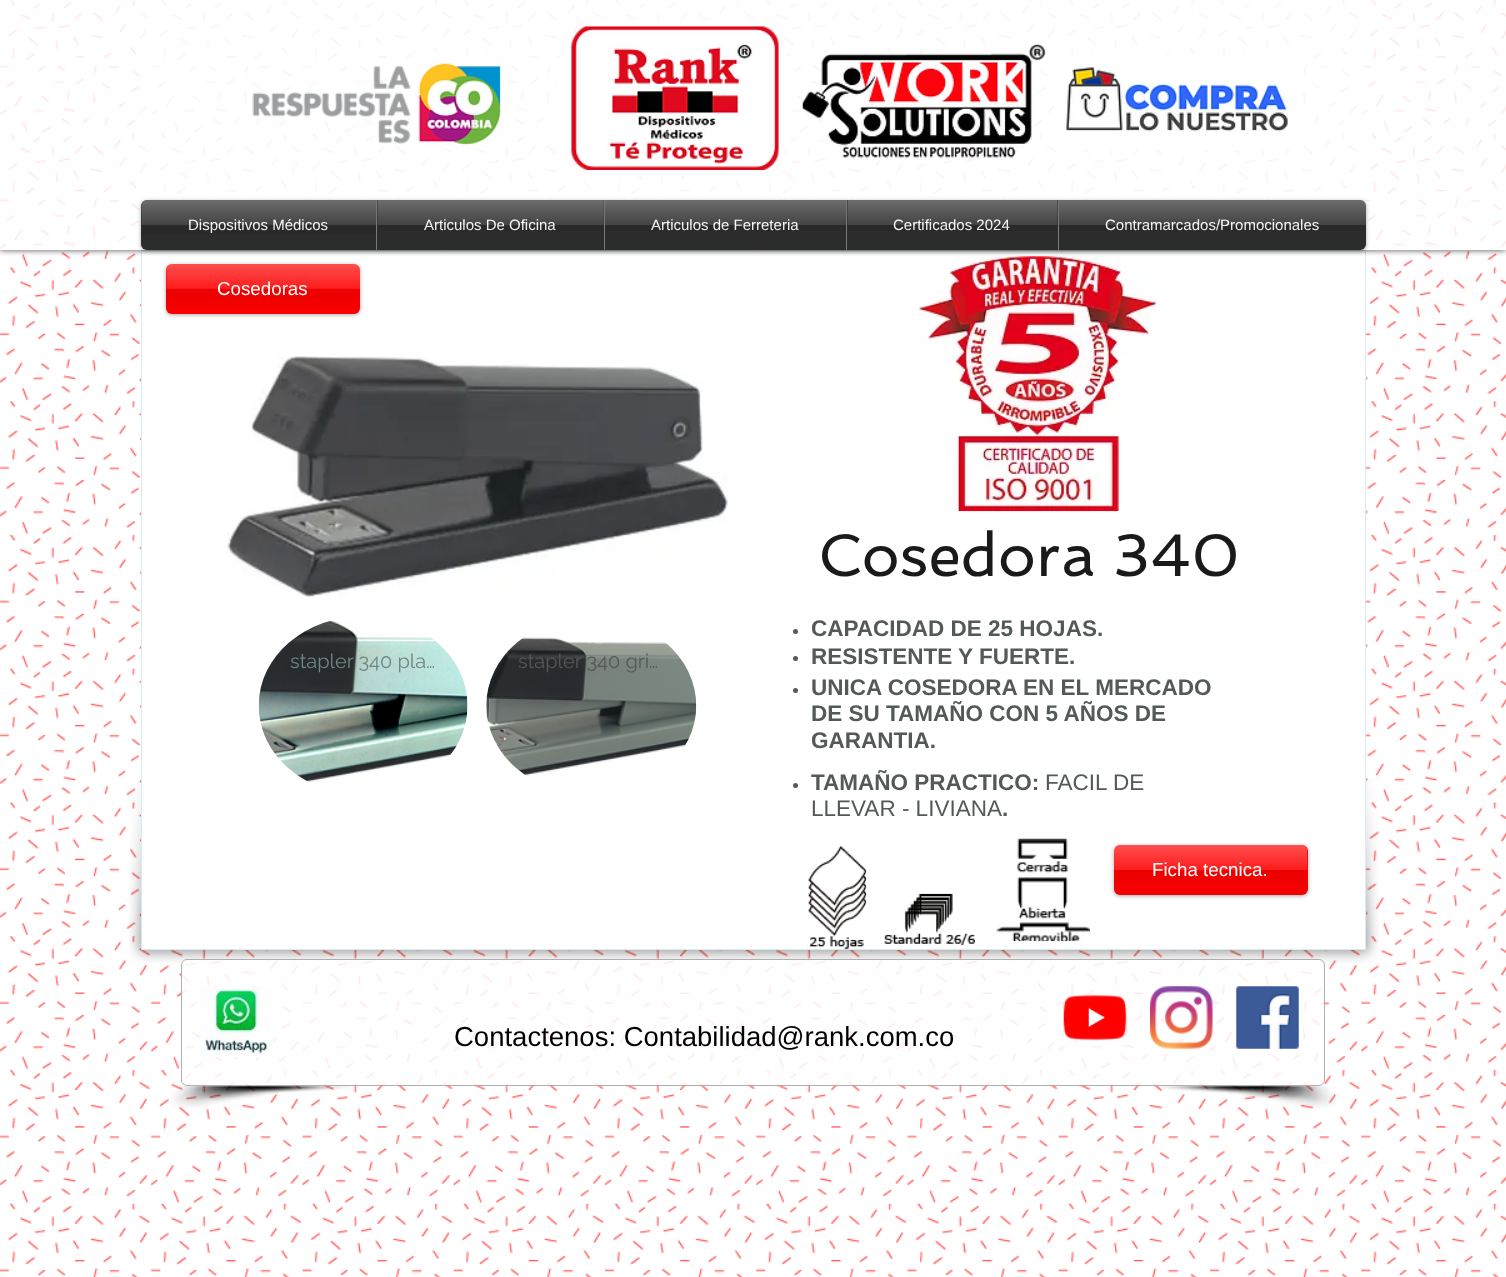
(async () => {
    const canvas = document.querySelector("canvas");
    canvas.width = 1506;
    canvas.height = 1277;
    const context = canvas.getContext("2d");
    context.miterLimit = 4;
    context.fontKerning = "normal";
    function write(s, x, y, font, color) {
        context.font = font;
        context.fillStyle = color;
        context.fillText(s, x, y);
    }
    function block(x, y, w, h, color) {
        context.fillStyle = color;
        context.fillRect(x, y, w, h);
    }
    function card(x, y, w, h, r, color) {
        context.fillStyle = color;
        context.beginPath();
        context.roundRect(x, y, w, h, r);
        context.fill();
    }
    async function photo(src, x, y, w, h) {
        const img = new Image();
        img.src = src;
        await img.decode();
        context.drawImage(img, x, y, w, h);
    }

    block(0, 0, 1506, 1277, "rgb(255, 255, 255)");
    await photo("media/1.png", 0, 0, 1506, 1277);
    await photo("media/12.png", 129, 782, 56, 181);
    await photo("media/13.png", 185, 950, 1138, 13);
    await photo("media/14.png", 1322, 778, 57, 185);
    context.beginPath();
    context.rect(141.5, 250.5, 1224, 699);
    context.fill();
    context.strokeStyle = "rgb(213, 236, 244)";
    context.stroke();
    await photo("media/16.png", 919, 256, 238, 256);
    context.save();
    context.beginPath();
    context.rect(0, 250, 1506, 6);
    context.clip();
    context.fillStyle = "rgba(0, 0, 0, 0.7)";
    context.filter = "blur(3px)";
    context.beginPath();
    context.rect(0, 0, 1506, 250);
    context.fill();
    context.filter = "none";
    context.restore();
    block(0, 0, 1506, 249, "rgba(255, 255, 255, 0.84)");
    block(141, 0, 1225, 249, "rgba(255, 255, 255, 0.47)");
    await photo("media/2.png", 252, 55, 253, 94);
    context.fillStyle = "rgb(255, 255, 255)";
    context.beginPath();
    context.moveTo(741, 176);
    context.lineTo(609, 176);
    context.bezierCurveTo(580, 176, 557, 152, 557, 122);
    context.lineTo(557, 79);
    context.bezierCurveTo(557, 49, 580, 25, 609, 25);
    context.lineTo(741, 25);
    context.bezierCurveTo(770, 25, 792, 49, 792, 79);
    context.lineTo(792, 122);
    context.bezierCurveTo(792, 152, 770, 176, 741, 176);
    context.closePath();
    context.fill();
    await photo("media/3.png", 571, 26, 208, 144);
    await photo("media/4.png", 802, 43, 244, 115);
    await photo("media/5.png", 1054, 55, 245, 95);
    context.fillStyle = "rgba(0, 0, 0, 0.33)";
    context.filter = "blur(2px)";
    context.beginPath();
    context.roundRect(141, 201, 1225, 50, 6);
    context.fill();
    context.filter = "none";
    await photo("media/6.png", 141, 200, 1225, 6);
    context.fillStyle = "rgb(44, 44, 44)";
    context.beginPath();
    context.roundRect(141, 200, 235, 50, [6, 0, 0, 6]);
    context.fill();
    write("Dispositivos Médicos", 188, 230, "15px Liberation Sans", "rgb(255, 255, 255)");
    await photo("media/7.png", 141, 200, 235, 34);
    block(377, 200, 227, 50, "rgb(44, 44, 44)");
    block(376, 200, 1, 50, "rgb(120, 120, 120)");
    write("Articulos De Oficina", 424, 230, "15px Liberation Sans", "rgb(255, 255, 255)");
    await photo("media/8.png", 377, 200, 227, 31);
    block(605, 200, 241, 50, "rgb(44, 44, 44)");
    block(604, 200, 1, 50, "rgb(120, 120, 120)");
    write("Articulos de Ferreteria", 651, 230, "15px Liberation Sans", "rgb(255, 255, 255)");
    await photo("media/9.png", 605, 200, 241, 31);
    block(847, 200, 211, 50, "rgb(44, 44, 44)");
    block(846, 200, 1, 50, "rgb(120, 120, 120)");
    write("Certificados 2024", 893, 230, "15px Liberation Sans", "rgb(255, 255, 255)");
    await photo("media/10.png", 847, 200, 211, 31);
    context.fillStyle = "rgb(44, 44, 44)";
    context.beginPath();
    context.roundRect(1058, 200, 308, 50, [0, 6, 6, 0]);
    context.fill();
    block(1058, 200, 1, 50, "rgb(120, 120, 120)");
    write("Contramarcados/Promocionales", 1105, 230, "15px Liberation Sans", "rgb(255, 255, 255)");
    await photo("media/11.png", 1059, 200, 307, 31);
    context.fillStyle = "rgba(0, 0, 0, 0.33)";
    context.filter = "blur(2px)";
    context.beginPath();
    context.roundRect(166, 265, 194, 50, 6);
    context.fill();
    context.filter = "none";
    card(166, 264, 194, 50, 6, "rgb(254, 1, 1)");
    await photo("media/15.png", 166, 264, 194, 49);
    write("Cosedoras", 217, 295, "18.75px Liberation Sans", "rgb(255, 255, 255)");
    await photo("media/17.png", 227, 356, 501, 241);
    write("Cosedora 340", 818, 576, "60px Spinnaker", "rgb(26, 26, 26)");
    context.fillStyle = "rgb(88, 88, 88)";
    context.beginPath();
    context.arc(795.5, 631.5, 2.5, 0, Math.PI * 2);
    context.fill();
    write("CAPACIDAD DE 25 HOJAS.", 811, 636, "bold 22.5px Liberation Sans", "rgb(83, 89, 87)");
    await photo("media/18.png", 258, 620, 210, 162);
    write("stapler 340 pla…", 290, 668, "20px Raleway", "rgb(113, 133, 130)");
    await photo("media/19.png", 486, 637, 211, 139);
    write("stapler 340 gri…", 518, 668, "20px Raleway", "rgb(83, 89, 87)");
    context.fillStyle = "rgb(88, 88, 88)";
    context.beginPath();
    context.arc(795.5, 658.5, 2.5, 0, Math.PI * 2);
    context.fill();
    write("RESISTENTE Y FUERTE.", 811, 664, "bold 22.5px Liberation Sans", "rgb(83, 89, 87)");
    context.fillStyle = "rgb(88, 88, 88)";
    context.beginPath();
    context.arc(795.5, 690.5, 2.5, 0, Math.PI * 2);
    context.fill();
    write("UNICA COSEDORA EN EL MERCADO", 811, 695, "bold 22.5px Liberation Sans", "rgb(83, 89, 87)");
    write("DE SU TAMAÑO CON 5 AÑOS DE", 811, 721, "bold 22.5px Liberation Sans", "rgb(83, 89, 87)");
    write("GARANTIA.", 811, 748, "bold 22.5px Liberation Sans", "rgb(83, 89, 87)");
    context.fillStyle = "rgb(88, 88, 88)";
    context.beginPath();
    context.arc(795.5, 785.5, 2.5, 0, Math.PI * 2);
    context.fill();
    write("TAMAÑO PRACTICO:", 811, 790, "bold 22.5px Liberation Sans", "rgb(83, 89, 87)");
    write("FACIL DE", 1045, 790, "22.5px Liberation Sans", "rgb(83, 89, 87)");
    write("LLEVAR - LIVIANA", 811, 816, "22.5px Liberation Sans", "rgb(83, 89, 87)");
    write(".", 1002, 816, "bold 22.5px Liberation Sans", "rgb(83, 89, 87)");
    await photo("media/20.png", 808, 846, 59, 103);
    await photo("media/21.png", 996, 838, 94, 104);
    context.fillStyle = "rgba(0, 0, 0, 0.33)";
    context.filter = "blur(2px)";
    context.beginPath();
    context.roundRect(1114, 846, 194, 50, 6);
    context.fill();
    context.filter = "none";
    card(1114, 845, 194, 50, 6, "rgb(254, 1, 1)");
    await photo("media/22.png", 1114, 845, 194, 50);
    write("Ficha tecnica.", 1152, 876, "18.75px Liberation Sans", "rgb(255, 255, 255)");
    await photo("media/23.png", 884, 893, 91, 53);
    card(181, 959, 1144, 127, 6, "rgba(255, 255, 255, 0.86)");
    context.beginPath();
    context.roundRect(181.5, 959.5, 1143, 126, 5.5);
    context.strokeStyle = "rgba(26, 26, 26, 0.35)";
    context.stroke();
    await photo("media/24.png", 200, 986, 74, 71);
    write("Contactenos: Contabilidad@rank.com.co", 454, 1046, "27.5px Liberation Sans", "rgb(0, 0, 0)");
    await photo("media/25.png", 1063, 994, 64, 47);
    await photo("media/26.png", 1150, 986, 63, 63);
    await photo("media/27.png", 1236, 986, 63, 63);
    await photo("media/28.png", 171, 1086, 183, 22);
    await photo("media/29.png", 1152, 1086, 184, 22);
})();
